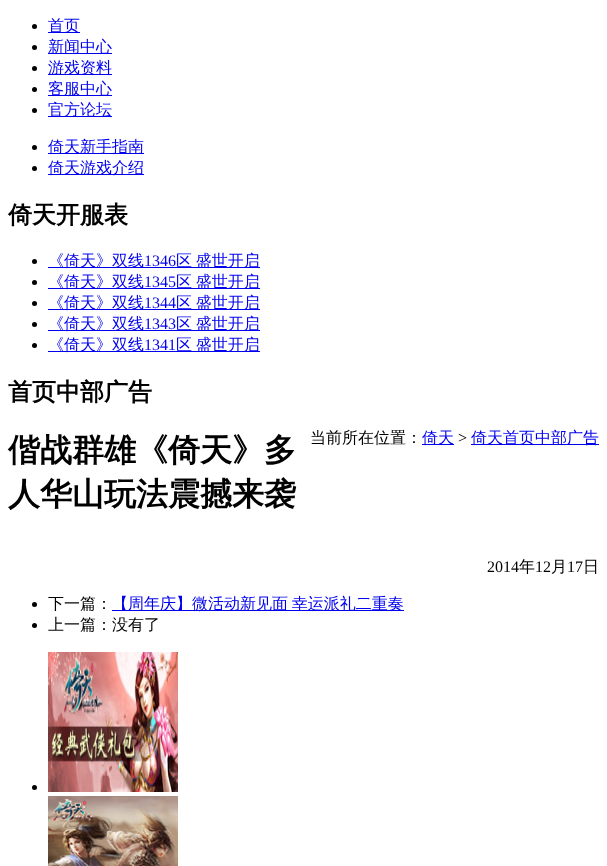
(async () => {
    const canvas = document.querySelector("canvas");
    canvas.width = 607;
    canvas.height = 866;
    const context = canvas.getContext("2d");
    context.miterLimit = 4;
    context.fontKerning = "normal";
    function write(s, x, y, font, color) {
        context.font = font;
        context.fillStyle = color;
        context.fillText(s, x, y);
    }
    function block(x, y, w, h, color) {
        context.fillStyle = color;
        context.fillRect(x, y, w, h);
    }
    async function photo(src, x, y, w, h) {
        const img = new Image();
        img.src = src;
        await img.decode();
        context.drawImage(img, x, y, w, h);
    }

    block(0, 0, 607, 866, "rgb(255, 255, 255)");
    context.fillStyle = "rgb(0, 0, 0)";
    context.beginPath();
    context.arc(34.5, 26.5, 2.5, 0, Math.PI * 2);
    context.fill();
    block(48, 32, 32, 1, "rgb(0, 0, 238)");
    write("首页", 48, 31, "500 16px WenQuanYi Zen Hei", "rgb(0, 0, 238)");
    context.fillStyle = "rgb(0, 0, 0)";
    context.beginPath();
    context.arc(34.5, 47.5, 2.5, 0, Math.PI * 2);
    context.fill();
    block(48, 53, 64, 1, "rgb(0, 0, 238)");
    write("新闻中心", 48, 52, "500 16px WenQuanYi Zen Hei", "rgb(0, 0, 238)");
    context.fillStyle = "rgb(0, 0, 0)";
    context.beginPath();
    context.arc(34.5, 68.5, 2.5, 0, Math.PI * 2);
    context.fill();
    block(48, 74, 64, 1, "rgb(0, 0, 238)");
    write("游戏资料", 48, 73, "500 16px WenQuanYi Zen Hei", "rgb(0, 0, 238)");
    context.fillStyle = "rgb(0, 0, 0)";
    context.beginPath();
    context.arc(34.5, 89.5, 2.5, 0, Math.PI * 2);
    context.fill();
    block(48, 95, 64, 1, "rgb(0, 0, 238)");
    write("客服中心", 48, 94, "500 16px WenQuanYi Zen Hei", "rgb(0, 0, 238)");
    context.fillStyle = "rgb(0, 0, 0)";
    context.beginPath();
    context.arc(34.5, 110.5, 2.5, 0, Math.PI * 2);
    context.fill();
    block(48, 116, 64, 1, "rgb(0, 0, 238)");
    write("官方论坛", 48, 115, "500 16px WenQuanYi Zen Hei", "rgb(0, 0, 238)");
    context.fillStyle = "rgb(0, 0, 0)";
    context.beginPath();
    context.arc(34.5, 147.5, 2.5, 0, Math.PI * 2);
    context.fill();
    block(48, 153, 96, 1, "rgb(0, 0, 238)");
    write("倚天新手指南", 48, 152, "500 16px WenQuanYi Zen Hei", "rgb(0, 0, 238)");
    context.fillStyle = "rgb(0, 0, 0)";
    context.beginPath();
    context.arc(34.5, 168.5, 2.5, 0, Math.PI * 2);
    context.fill();
    block(48, 174, 96, 1, "rgb(0, 0, 238)");
    write("倚天游戏介绍", 48, 173, "500 16px WenQuanYi Zen Hei", "rgb(0, 0, 238)");
    write("倚天开服表", 8, 223, "bold 24px WenQuanYi Zen Hei", "rgb(0, 0, 0)");
    context.beginPath();
    context.arc(34.5, 261.5, 2.5, 0, Math.PI * 2);
    context.fill();
    block(48, 267, 212, 1, "rgb(0, 0, 238)");
    write("《倚天》双线", 48, 266, "500 16px WenQuanYi Zen Hei", "rgb(0, 0, 238)");
    write("1346", 144, 266, "16px Liberation Serif", "rgb(0, 0, 238)");
    context.wordSpacing = "-1px";
    write("区 盛世开启", 176, 266, "500 16px WenQuanYi Zen Hei", "rgb(0, 0, 238)");
    context.fillStyle = "rgb(0, 0, 0)";
    context.beginPath();
    context.arc(34.5, 282.5, 2.5, 0, Math.PI * 2);
    context.fill();
    block(48, 288, 212, 1, "rgb(0, 0, 238)");
    context.wordSpacing = "0px";
    write("《倚天》双线", 48, 287, "500 16px WenQuanYi Zen Hei", "rgb(0, 0, 238)");
    write("1345", 144, 287, "16px Liberation Serif", "rgb(0, 0, 238)");
    context.wordSpacing = "-1px";
    write("区 盛世开启", 176, 287, "500 16px WenQuanYi Zen Hei", "rgb(0, 0, 238)");
    context.fillStyle = "rgb(0, 0, 0)";
    context.beginPath();
    context.arc(34.5, 303.5, 2.5, 0, Math.PI * 2);
    context.fill();
    block(48, 309, 212, 1, "rgb(0, 0, 238)");
    context.wordSpacing = "0px";
    write("《倚天》双线", 48, 308, "500 16px WenQuanYi Zen Hei", "rgb(0, 0, 238)");
    write("1344", 144, 308, "16px Liberation Serif", "rgb(0, 0, 238)");
    context.wordSpacing = "-1px";
    write("区 盛世开启", 176, 308, "500 16px WenQuanYi Zen Hei", "rgb(0, 0, 238)");
    context.fillStyle = "rgb(0, 0, 0)";
    context.beginPath();
    context.arc(34.5, 324.5, 2.5, 0, Math.PI * 2);
    context.fill();
    block(48, 330, 212, 1, "rgb(0, 0, 238)");
    context.wordSpacing = "0px";
    write("《倚天》双线", 48, 329, "500 16px WenQuanYi Zen Hei", "rgb(0, 0, 238)");
    write("1343", 144, 329, "16px Liberation Serif", "rgb(0, 0, 238)");
    context.wordSpacing = "-1px";
    write("区 盛世开启", 176, 329, "500 16px WenQuanYi Zen Hei", "rgb(0, 0, 238)");
    context.fillStyle = "rgb(0, 0, 0)";
    context.beginPath();
    context.arc(34.5, 345.5, 2.5, 0, Math.PI * 2);
    context.fill();
    block(48, 351, 212, 1, "rgb(0, 0, 238)");
    context.wordSpacing = "0px";
    write("《倚天》双线", 48, 350, "500 16px WenQuanYi Zen Hei", "rgb(0, 0, 238)");
    write("1341", 144, 350, "16px Liberation Serif", "rgb(0, 0, 238)");
    context.wordSpacing = "-1px";
    write("区 盛世开启", 176, 350, "500 16px WenQuanYi Zen Hei", "rgb(0, 0, 238)");
    context.wordSpacing = "0px";
    write("首页中部广告", 8, 400, "bold 24px WenQuanYi Zen Hei", "rgb(0, 0, 0)");
    write("当前所在位置：", 310, 443, "500 16px WenQuanYi Zen Hei", "rgb(0, 0, 0)");
    block(422, 444, 32, 1, "rgb(0, 0, 238)");
    write("倚天", 422, 443, "500 16px WenQuanYi Zen Hei", "rgb(0, 0, 238)");
    write(">", 458, 443, "16px Liberation Serif", "rgb(0, 0, 0)");
    block(471, 444, 128, 1, "rgb(0, 0, 238)");
    write("倚天首页中部广告", 471, 443, "500 16px WenQuanYi Zen Hei", "rgb(0, 0, 238)");
    write("偕战群雄《倚天》多", 8, 461, "bold 32px WenQuanYi Zen Hei", "rgb(0, 0, 0)");
    write("人华山玩法震撼来袭", 8, 505, "bold 32px WenQuanYi Zen Hei", "rgb(0, 0, 0)");
    write("2014", 487, 572, "16px Liberation Serif", "rgb(0, 0, 0)");
    write("年", 519, 572, "500 16px WenQuanYi Zen Hei", "rgb(0, 0, 0)");
    write("12", 535, 572, "16px Liberation Serif", "rgb(0, 0, 0)");
    write("月", 551, 572, "500 16px WenQuanYi Zen Hei", "rgb(0, 0, 0)");
    write("17", 567, 572, "16px Liberation Serif", "rgb(0, 0, 0)");
    write("日", 583, 572, "500 16px WenQuanYi Zen Hei", "rgb(0, 0, 0)");
    context.beginPath();
    context.arc(34.5, 604.5, 2.5, 0, Math.PI * 2);
    context.fill();
    write("下一篇：", 48, 609, "500 16px WenQuanYi Zen Hei", "rgb(0, 0, 0)");
    block(112, 610, 292, 1, "rgb(0, 0, 238)");
    context.wordSpacing = "-1px";
    write("【周年庆】微活动新见面 幸运派礼二重奏", 112, 609, "500 16px WenQuanYi Zen Hei", "rgb(0, 0, 238)");
    context.fillStyle = "rgb(0, 0, 0)";
    context.beginPath();
    context.arc(34.5, 625.5, 2.5, 0, Math.PI * 2);
    context.fill();
    context.wordSpacing = "0px";
    write("上一篇：没有了", 48, 630, "500 16px WenQuanYi Zen Hei", "rgb(0, 0, 0)");
    context.beginPath();
    context.arc(34.5, 787.5, 2.5, 0, Math.PI * 2);
    context.fill();
    await photo("media/1.png", 48, 652, 130, 140);
    await photo("media/2.png", 48, 796, 130, 70);
})();
